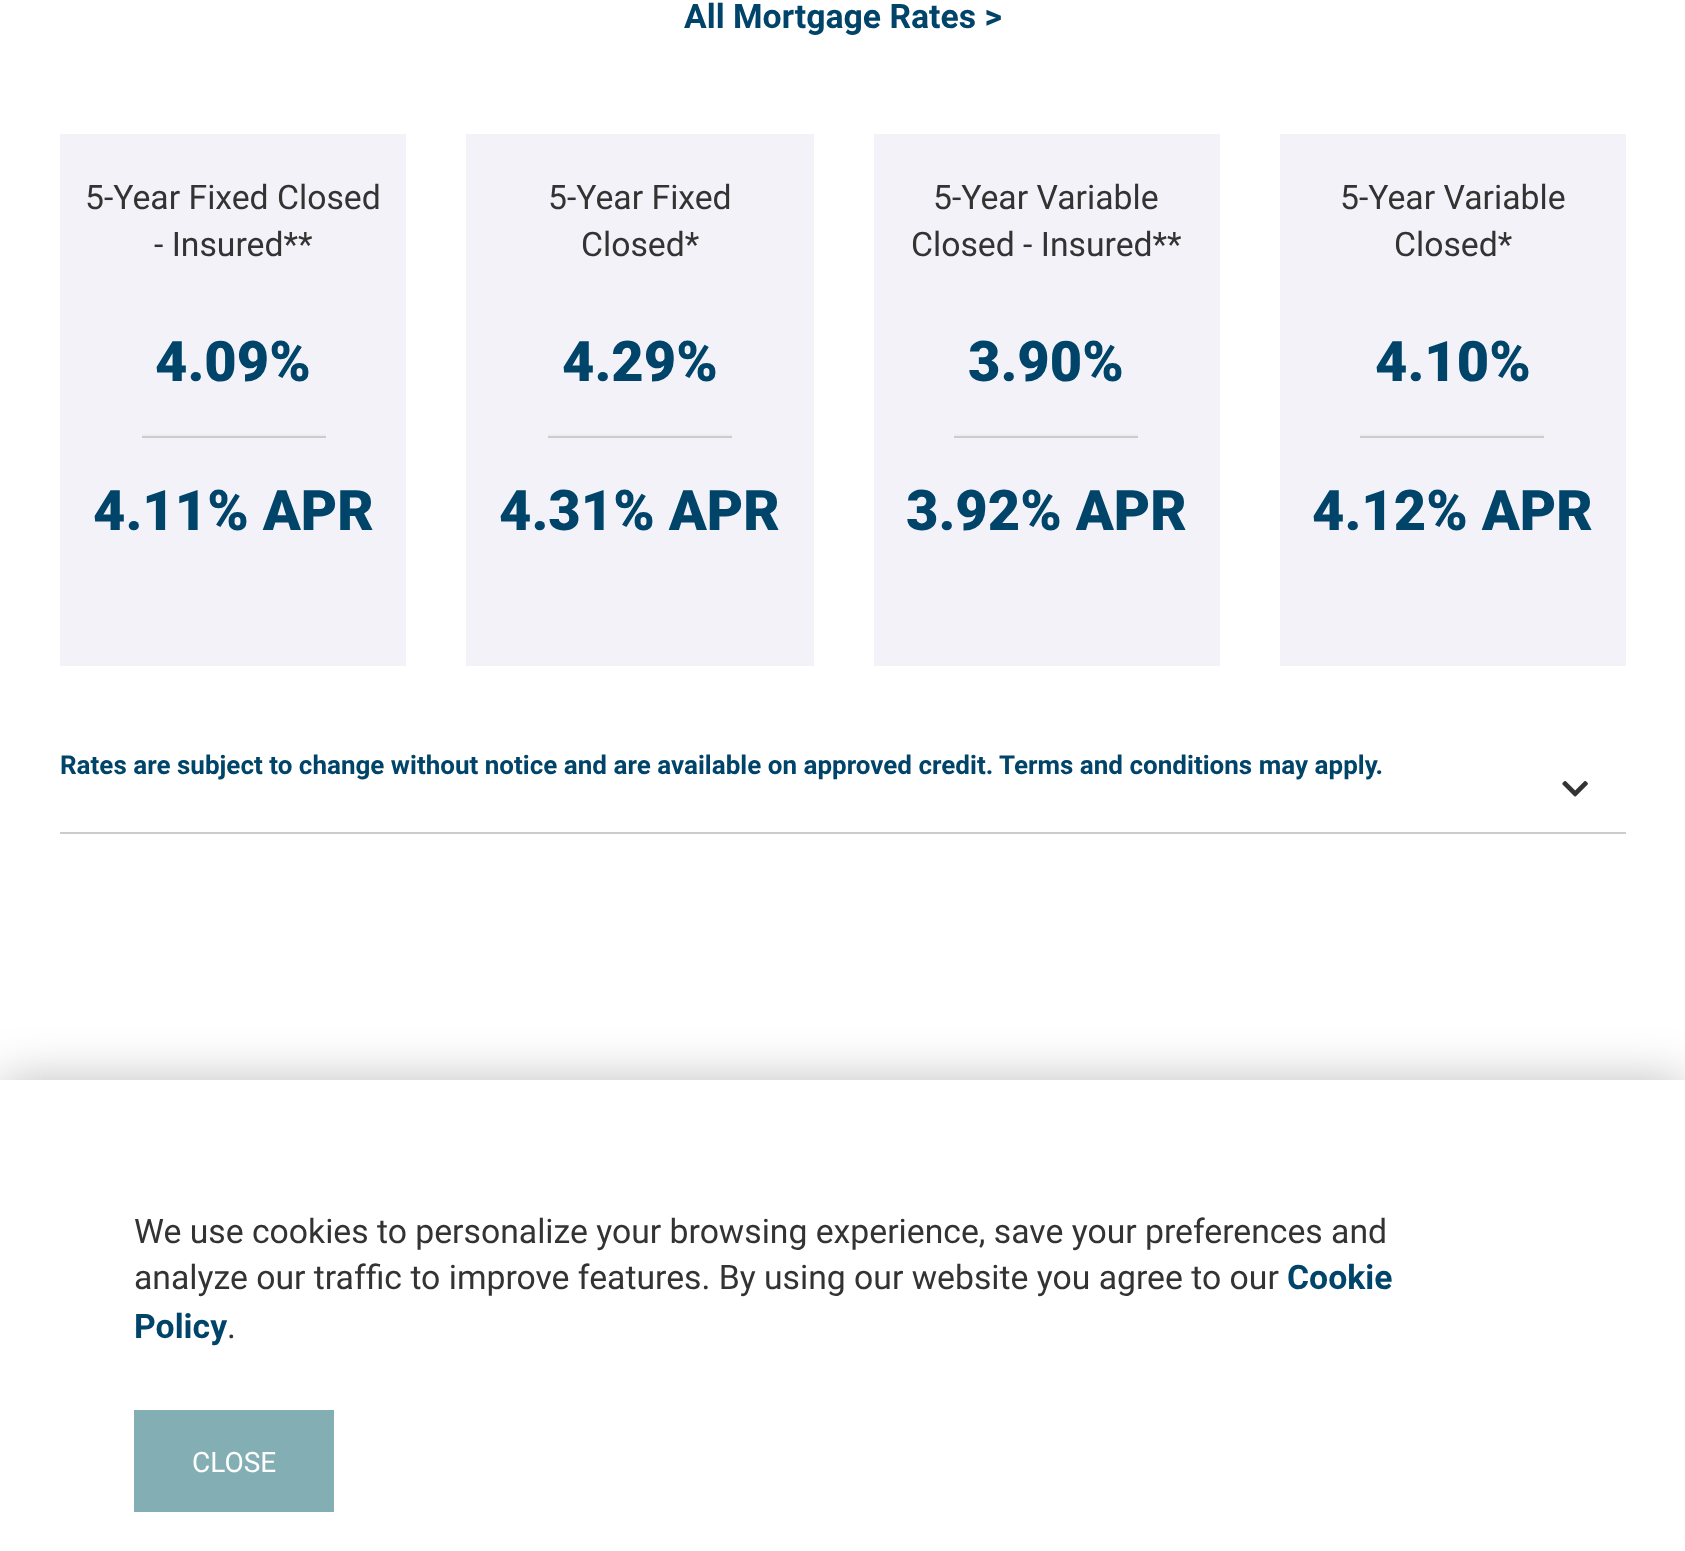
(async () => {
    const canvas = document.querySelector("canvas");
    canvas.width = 1685;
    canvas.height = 1551;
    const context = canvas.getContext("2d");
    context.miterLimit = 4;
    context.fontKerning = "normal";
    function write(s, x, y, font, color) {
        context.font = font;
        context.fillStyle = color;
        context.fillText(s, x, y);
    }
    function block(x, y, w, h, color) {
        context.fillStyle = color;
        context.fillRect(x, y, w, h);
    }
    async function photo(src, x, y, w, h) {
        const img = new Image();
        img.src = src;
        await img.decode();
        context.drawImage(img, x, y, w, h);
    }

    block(0, 0, 1685, 1551, "rgb(255, 255, 255)");
    write("All Mortgage Rates >", 684, 28, "bold 33.75px Roboto", "rgb(0, 68, 106)");
    block(60, 134, 346, 532, "rgb(242, 242, 248)");
    write("5-Year Fixed Closed", 85, 209, "33.75px Roboto", "rgb(51, 51, 51)");
    write("- Insured**", 154, 256, "33.75px Roboto", "rgb(51, 51, 51)");
    write("4.09%", 155, 381, "900 56px Roboto", "rgb(0, 68, 106)");
    block(142, 436, 184, 2, "rgb(204, 204, 204)");
    block(142, 434, 184, 2, "rgb(238, 238, 238)");
    write("4.11% APR", 93, 530, "900 56px Roboto", "rgb(0, 68, 106)");
    block(466, 134, 348, 532, "rgb(242, 242, 248)");
    write("5-Year Fixed", 548, 209, "33.75px Roboto", "rgb(51, 51, 51)");
    write("Closed*", 581, 256, "33.75px Roboto", "rgb(51, 51, 51)");
    write("4.29%", 562, 381, "900 56px Roboto", "rgb(0, 68, 106)");
    block(548, 436, 184, 2, "rgb(204, 204, 204)");
    block(548, 434, 184, 2, "rgb(238, 238, 238)");
    write("4.31% APR", 499, 530, "900 56px Roboto", "rgb(0, 68, 106)");
    block(874, 134, 346, 532, "rgb(242, 242, 248)");
    write("5-Year Variable", 933, 209, "33.75px Roboto", "rgb(51, 51, 51)");
    write("Closed - Insured**", 911, 256, "33.75px Roboto", "rgb(51, 51, 51)");
    write("3.90%", 968, 381, "900 56px Roboto", "rgb(0, 68, 106)");
    block(954, 436, 184, 2, "rgb(204, 204, 204)");
    block(954, 434, 184, 2, "rgb(238, 238, 238)");
    write("3.92% APR", 906, 530, "900 56px Roboto", "rgb(0, 68, 106)");
    block(1280, 134, 346, 532, "rgb(242, 242, 248)");
    write("5-Year Variable", 1340, 209, "33.75px Roboto", "rgb(51, 51, 51)");
    write("Closed*", 1394, 256, "33.75px Roboto", "rgb(51, 51, 51)");
    write("4.10%", 1375, 381, "900 56px Roboto", "rgb(0, 68, 106)");
    block(1360, 436, 184, 2, "rgb(204, 204, 204)");
    block(1360, 434, 184, 2, "rgb(238, 238, 238)");
    write("4.12% APR", 1312, 530, "900 56px Roboto", "rgb(0, 68, 106)");
    block(60, 832, 1566, 2, "rgb(204, 204, 204)");
    write("Rates are subject to change without notice and are available on approved credit. Terms and conditions may apply.", 60, 774, "bold 26.02px Roboto", "rgb(0, 68, 106)");
    await photo("media/1.png", 1562, 781, 26, 16);
    context.fillStyle = "rgba(0, 0, 0, 0.25)";
    context.filter = "blur(25px)";
    context.beginPath();
    context.rect(0, 1080, 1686, 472);
    context.fill();
    context.filter = "none";
    block(0, 1080, 1685, 471, "rgb(255, 255, 255)");
    write("We use cookies to personalize your browsing experience, save your preferences and", 134, 1243, "33.75px Roboto", "rgb(51, 51, 51)");
    write("analyze our traffic to improve features. By using our website you agree to our", 134, 1289, "33.75px Roboto", "rgb(51, 51, 51)");
    write("Cookie", 1287, 1289, "bold 33.75px Roboto", "rgb(0, 68, 106)");
    write("Policy", 134, 1338, "bold 33.75px Roboto", "rgb(0, 68, 106)");
    write(".", 227, 1338, "33.75px Roboto", "rgb(51, 51, 51)");
    block(134, 1410, 200, 102, "rgb(131, 175, 180)");
    write("CLOSE", 192, 1472, "28px Roboto", "rgb(255, 255, 255)");
})();
